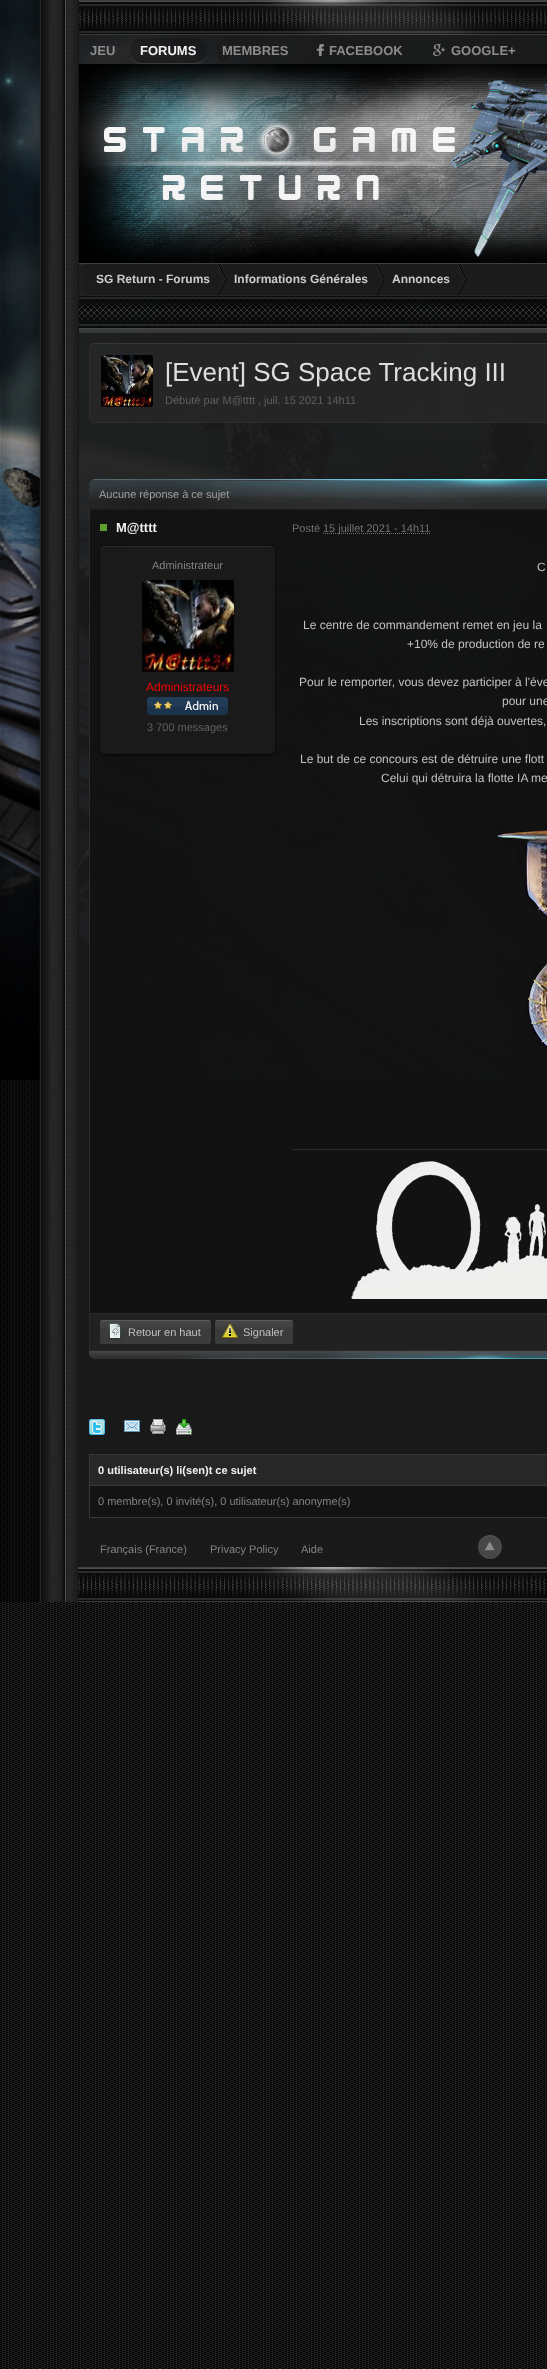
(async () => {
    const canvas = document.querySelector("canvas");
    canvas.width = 547;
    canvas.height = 2369;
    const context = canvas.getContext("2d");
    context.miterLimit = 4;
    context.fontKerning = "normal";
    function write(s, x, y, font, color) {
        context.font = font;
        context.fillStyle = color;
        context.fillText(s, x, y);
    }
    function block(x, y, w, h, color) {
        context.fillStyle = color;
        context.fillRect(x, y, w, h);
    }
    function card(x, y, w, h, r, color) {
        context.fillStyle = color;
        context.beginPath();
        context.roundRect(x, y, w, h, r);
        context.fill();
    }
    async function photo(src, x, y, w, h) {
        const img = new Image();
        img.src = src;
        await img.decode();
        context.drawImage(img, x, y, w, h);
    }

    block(0, 0, 547, 2369, "rgb(29, 29, 29)");
    await photo("media/1.png", 0, 1080, 547, 1289);
    await photo("media/2.png", 0, 0, 547, 1080);
    await photo("media/3.png", 0, 0, 40, 1602);
    await photo("media/4.png", 489, 0, 58, 1567);
    await photo("media/5.png", 14, 0, 64, 1602);
    block(78, 0, 469, 1567, "rgba(27, 27, 27, 0.94)");
    block(78, 0, 1, 1567, "rgba(22, 22, 22, 0.94)");
    await photo("media/6.png", 79, 0, 468, 35);
    write("JEU", 90, 55, "bold 13px Liberation Sans", "rgb(140, 140, 141)");
    context.fillStyle = "rgba(255, 255, 255, 0.09)";
    context.beginPath();
    context.moveTo(130, 51);
    context.bezierCurveTo(130, 57, 134, 63, 140, 64);
    context.lineTo(197, 64);
    context.bezierCurveTo(203, 63, 207, 57, 207, 51);
    context.bezierCurveTo(207, 58, 201, 63, 194, 63);
    context.lineTo(142, 63);
    context.bezierCurveTo(136, 63, 130, 58, 130, 51);
    context.closePath();
    context.fill();
    card(130, 38, 77, 25, 12.5, "rgba(0, 0, 0, 0.19)");
    write("FORUMS", 140, 55, "bold 13px Liberation Sans", "rgb(242, 242, 242)");
    write("MEMBRES", 222, 55, "bold 13px Liberation Sans", "rgb(140, 140, 141)");
    await photo("media/7.png", 316, 44, 8, 12);
    write("FACEBOOK", 329, 55, "bold 13px Liberation Sans", "rgb(140, 140, 141)");
    await photo("media/8.png", 433, 44, 12, 12);
    write("GOOGLE+", 451, 55, "bold 13px Liberation Sans", "rgb(140, 140, 141)");
    await photo("media/9.png", 79, 64, 468, 199);
    await photo("media/10.png", 79, 64, 468, 199);
    card(79, 264, 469, 1, 0.5, "rgb(41, 41, 41)");
    block(79, 263, 468, 1, "rgb(63, 63, 63)");
    block(84, 264, 463, 31, "rgba(28, 28, 28, 0.94)");
    block(84, 295, 463, 1, "rgb(37, 37, 37)");
    await photo("media/11.png", 217, 264, 10, 31);
    write("SG Return - Forums", 96, 283, "bold 12px Liberation Sans", "rgb(204, 204, 204)");
    await photo("media/12.png", 375, 264, 10, 31);
    write("Informations Générales", 234, 283, "bold 12px Liberation Sans", "rgb(204, 204, 204)");
    await photo("media/11.png", 457, 264, 10, 31);
    write("Annonces", 392, 283, "bold 12px Liberation Sans", "rgb(204, 204, 204)");
    await photo("media/13.png", 79, 296, 468, 37);
    card(89, 343, 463, 80, 5, "rgba(38, 38, 38, 0.94)");
    context.beginPath();
    context.moveTo(91, 345);
    context.lineTo(94, 343.5);
    context.lineTo(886, 343.5);
    context.lineTo(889, 345);
    context.strokeStyle = "rgb(56, 56, 56)";
    context.stroke();
    context.beginPath();
    context.moveTo(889, 345);
    context.bezierCurveTo(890, 345.5, 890.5, 347, 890.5, 348);
    context.lineTo(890.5, 418);
    context.bezierCurveTo(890.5, 419, 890, 420.5, 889, 421);
    context.bezierCurveTo(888.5, 422, 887, 422.5, 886, 422.5);
    context.lineTo(94, 422.5);
    context.bezierCurveTo(93, 422.5, 91.5, 422, 91, 421);
    context.bezierCurveTo(90, 420.5, 89.5, 419, 89.5, 418);
    context.lineTo(89.5, 348);
    context.bezierCurveTo(89.5, 347, 90, 345.5, 91, 345);
    context.strokeStyle = "rgb(44, 44, 44)";
    context.stroke();
    await photo("media/14.png", 101, 355, 52, 52);
    write("[Event] SG Space Tracking III", 165, 381, "26px Liberation Sans", "rgb(222, 222, 222)");
    write("Débuté par M@tttt", 165, 404, "11px Liberation Sans", "rgb(96, 96, 96)");
    write(",", 258, 404, "11px Liberation Sans", "rgb(96, 96, 96)");
    write("juil. 15 2021 14h11", 264, 404, "11px Liberation Sans", "rgb(96, 96, 96)");
    await photo("media/15.png", 89, 479, 458, 30);
    write("Aucune réponse à ce sujet", 99, 498, "11px Liberation Sans", "rgb(159, 160, 160)");
    block(89, 510, 458, 840, "rgba(18, 18, 18, 0.94)");
    block(89, 509, 423, 1, "rgb(27, 27, 27)");
    block(89, 1350, 458, 1, "rgb(42, 42, 42)");
    block(89, 509, 1, 842, "rgba(44, 44, 44, 0.94)");
    block(100, 524, 7, 7, "rgb(95, 159, 46)");
    write("M@tttt", 116, 532, "bold 13px Liberation Sans", "rgb(242, 242, 242)");
    write("Posté", 292, 532, "11px Liberation Sans", "rgb(113, 113, 113)");
    context.beginPath();
    context.moveTo(323, 533.5);
    context.lineTo(430.5, 533.5);
    context.strokeStyle = "rgb(113, 113, 113)";
    context.setLineDash([1, 1]);
    context.stroke();
    write("15 juillet 2021 - 14h11", 323, 532, "11px Liberation Sans", "rgb(113, 113, 113)");
    context.save();
    context.beginPath();
    context.moveTo(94, 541);
    context.lineTo(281, 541);
    context.lineTo(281, 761);
    context.lineTo(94, 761);
    context.closePath();
    context.moveTo(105, 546);
    context.lineTo(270, 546);
    context.bezierCurveTo(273, 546, 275, 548, 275, 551);
    context.lineTo(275, 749);
    context.bezierCurveTo(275, 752, 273, 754, 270, 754);
    context.lineTo(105, 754);
    context.bezierCurveTo(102, 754, 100, 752, 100, 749);
    context.lineTo(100, 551);
    context.bezierCurveTo(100, 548, 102, 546, 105, 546);
    context.closePath();
    context.clip("evenodd");
    context.fillStyle = "rgba(0, 0, 0, 0.85)";
    context.filter = "blur(1.5px)";
    context.beginPath();
    context.roundRect(100, 547, 175, 208, 5);
    context.fill();
    context.filter = "none";
    context.restore();
    card(100, 546, 175, 208, 5, "rgba(27, 27, 27, 0.94)");
    context.fillStyle = "rgba(255, 255, 255, 0.08)";
    context.beginPath();
    context.moveTo(105, 547);
    context.lineTo(270, 547);
    context.bezierCurveTo(273, 547, 275, 549, 275, 552);
    context.bezierCurveTo(275, 550, 275, 548, 273, 547);
    context.lineTo(270, 546);
    context.lineTo(104, 546);
    context.bezierCurveTo(101, 547, 100, 549, 100, 552);
    context.bezierCurveTo(100, 549, 102, 547, 105, 547);
    context.closePath();
    context.fill();
    write("Administrateur", 152, 569, "11px Liberation Sans", "rgb(130, 130, 130)");
    await photo("media/16.png", 142, 580, 92, 92);
    write("Administrateurs", 146, 691, "12px Liberation Sans", "rgb(241, 2, 2)");
    await photo("media/17.png", 147, 697, 81, 18);
    write("3 700 messages", 147, 731, "11px Liberation Sans", "rgb(96, 96, 96)");
    write("C", 537, 571, "12px Liberation Sans", "rgb(193, 193, 193)");
    write("Le centre de commandement remet en jeu la", 303, 629, "12px Liberation Sans", "rgb(193, 193, 193)");
    write("+10% de production de re", 407, 648, "12px Liberation Sans", "rgb(193, 193, 193)");
    write("Pour le remporter, vous devez participer à l'éve", 299, 686, "12px Liberation Sans", "rgb(193, 193, 193)");
    write("pour une", 502, 705, "12px Liberation Sans", "rgb(193, 193, 193)");
    write("Les inscriptions sont déjà ouvertes,", 359, 725, "12px Liberation Sans", "rgb(193, 193, 193)");
    write("Le but de ce concours est de détruire une flott", 300, 763, "12px Liberation Sans", "rgb(193, 193, 193)");
    write("Celui qui détruira la flotte IA me", 381, 782, "12px Liberation Sans", "rgb(193, 193, 193)");
    await photo("media/18.png", 497, 818, 50, 231);
    block(292, 1149, 255, 1, "rgb(42, 42, 42)");
    await photo("media/19.png", 351, 1161, 196, 138);
    block(90, 1314, 457, 36, "rgb(33, 33, 33)");
    block(90, 1313, 457, 1, "rgb(42, 42, 42)");
    card(100, 1320, 111, 24, 2, "rgb(59, 59, 59)");
    await photo("media/20.png", 100, 1320, 111, 9);
    await photo("media/21.png", 108, 1323, 14, 16);
    write("Retour en haut", 128, 1336, "11px Liberation Sans", "rgb(193, 193, 193)");
    card(215, 1320, 78, 24, 2, "rgb(59, 59, 59)");
    await photo("media/22.png", 215, 1320, 78, 9);
    await photo("media/23.png", 222, 1324, 16, 15);
    write("Signaler", 243, 1336, "11px Liberation Sans", "rgb(193, 193, 193)");
    context.fillStyle = "rgb(46, 48, 49)";
    context.beginPath();
    context.moveTo(89, 1351);
    context.lineTo(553, 1351);
    context.lineTo(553, 1353);
    context.bezierCurveTo(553, 1356.5, 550.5, 1359, 547, 1359);
    context.lineTo(95, 1359);
    context.bezierCurveTo(91.5, 1359, 89, 1356.5, 89, 1353);
    context.closePath();
    context.fill();
    await photo("media/24.png", 89, 1351, 458, 8);
    await photo("media/25.png", 89, 1419, 16, 16);
    await photo("media/26.png", 124, 1420, 16, 13);
    await photo("media/27.png", 150, 1419, 16, 15);
    await photo("media/28.png", 176, 1419, 16, 16);
    block(90, 1486, 457, 31, "rgb(19, 19, 19)");
    context.strokeStyle = "rgb(55, 55, 55)";
    context.setLineDash([]);
    context.strokeRect(89.5, 1454.5, 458, 63);
    block(90, 1455, 457, 30, "rgb(39, 39, 39)");
    block(90, 1485, 457, 1, "rgb(56, 56, 56)");
    write("0 utilisateur(s) li(sen)t ce sujet", 98, 1474, "bold 11px Liberation Sans", "rgb(242, 242, 242)");
    write("0 membre(s), 0 invité(s), 0 utilisateur(s) anonyme(s)", 98, 1505, "11px Liberation Sans", "rgb(130, 130, 130)");
    write("Français (France)", 100, 1553, "11px Liberation Sans", "rgb(130, 130, 130)");
    write("Privacy Policy", 210, 1553, "11px Liberation Sans", "rgb(130, 130, 130)");
    write("Aide", 301, 1553, "11px Liberation Sans", "rgb(130, 130, 130)");
    context.fillStyle = "rgb(71, 71, 71)";
    context.beginPath();
    context.arc(490, 1547, 12, 0, Math.PI * 2);
    context.fill();
    context.fillStyle = "rgba(255, 255, 255, 0.13)";
    context.beginPath();
    context.moveTo(490, 1536);
    context.bezierCurveTo(498, 1536, 502, 1541.5, 502, 1547.5);
    context.bezierCurveTo(502.5, 1531, 477.5, 1531, 478, 1547.5);
    context.bezierCurveTo(478, 1541.5, 482, 1536, 490, 1536);
    context.closePath();
    context.fill();
    await photo("media/29.png", 485, 1542, 10, 9);
    await photo("media/30.png", 78, 1567, 469, 35);
})();
